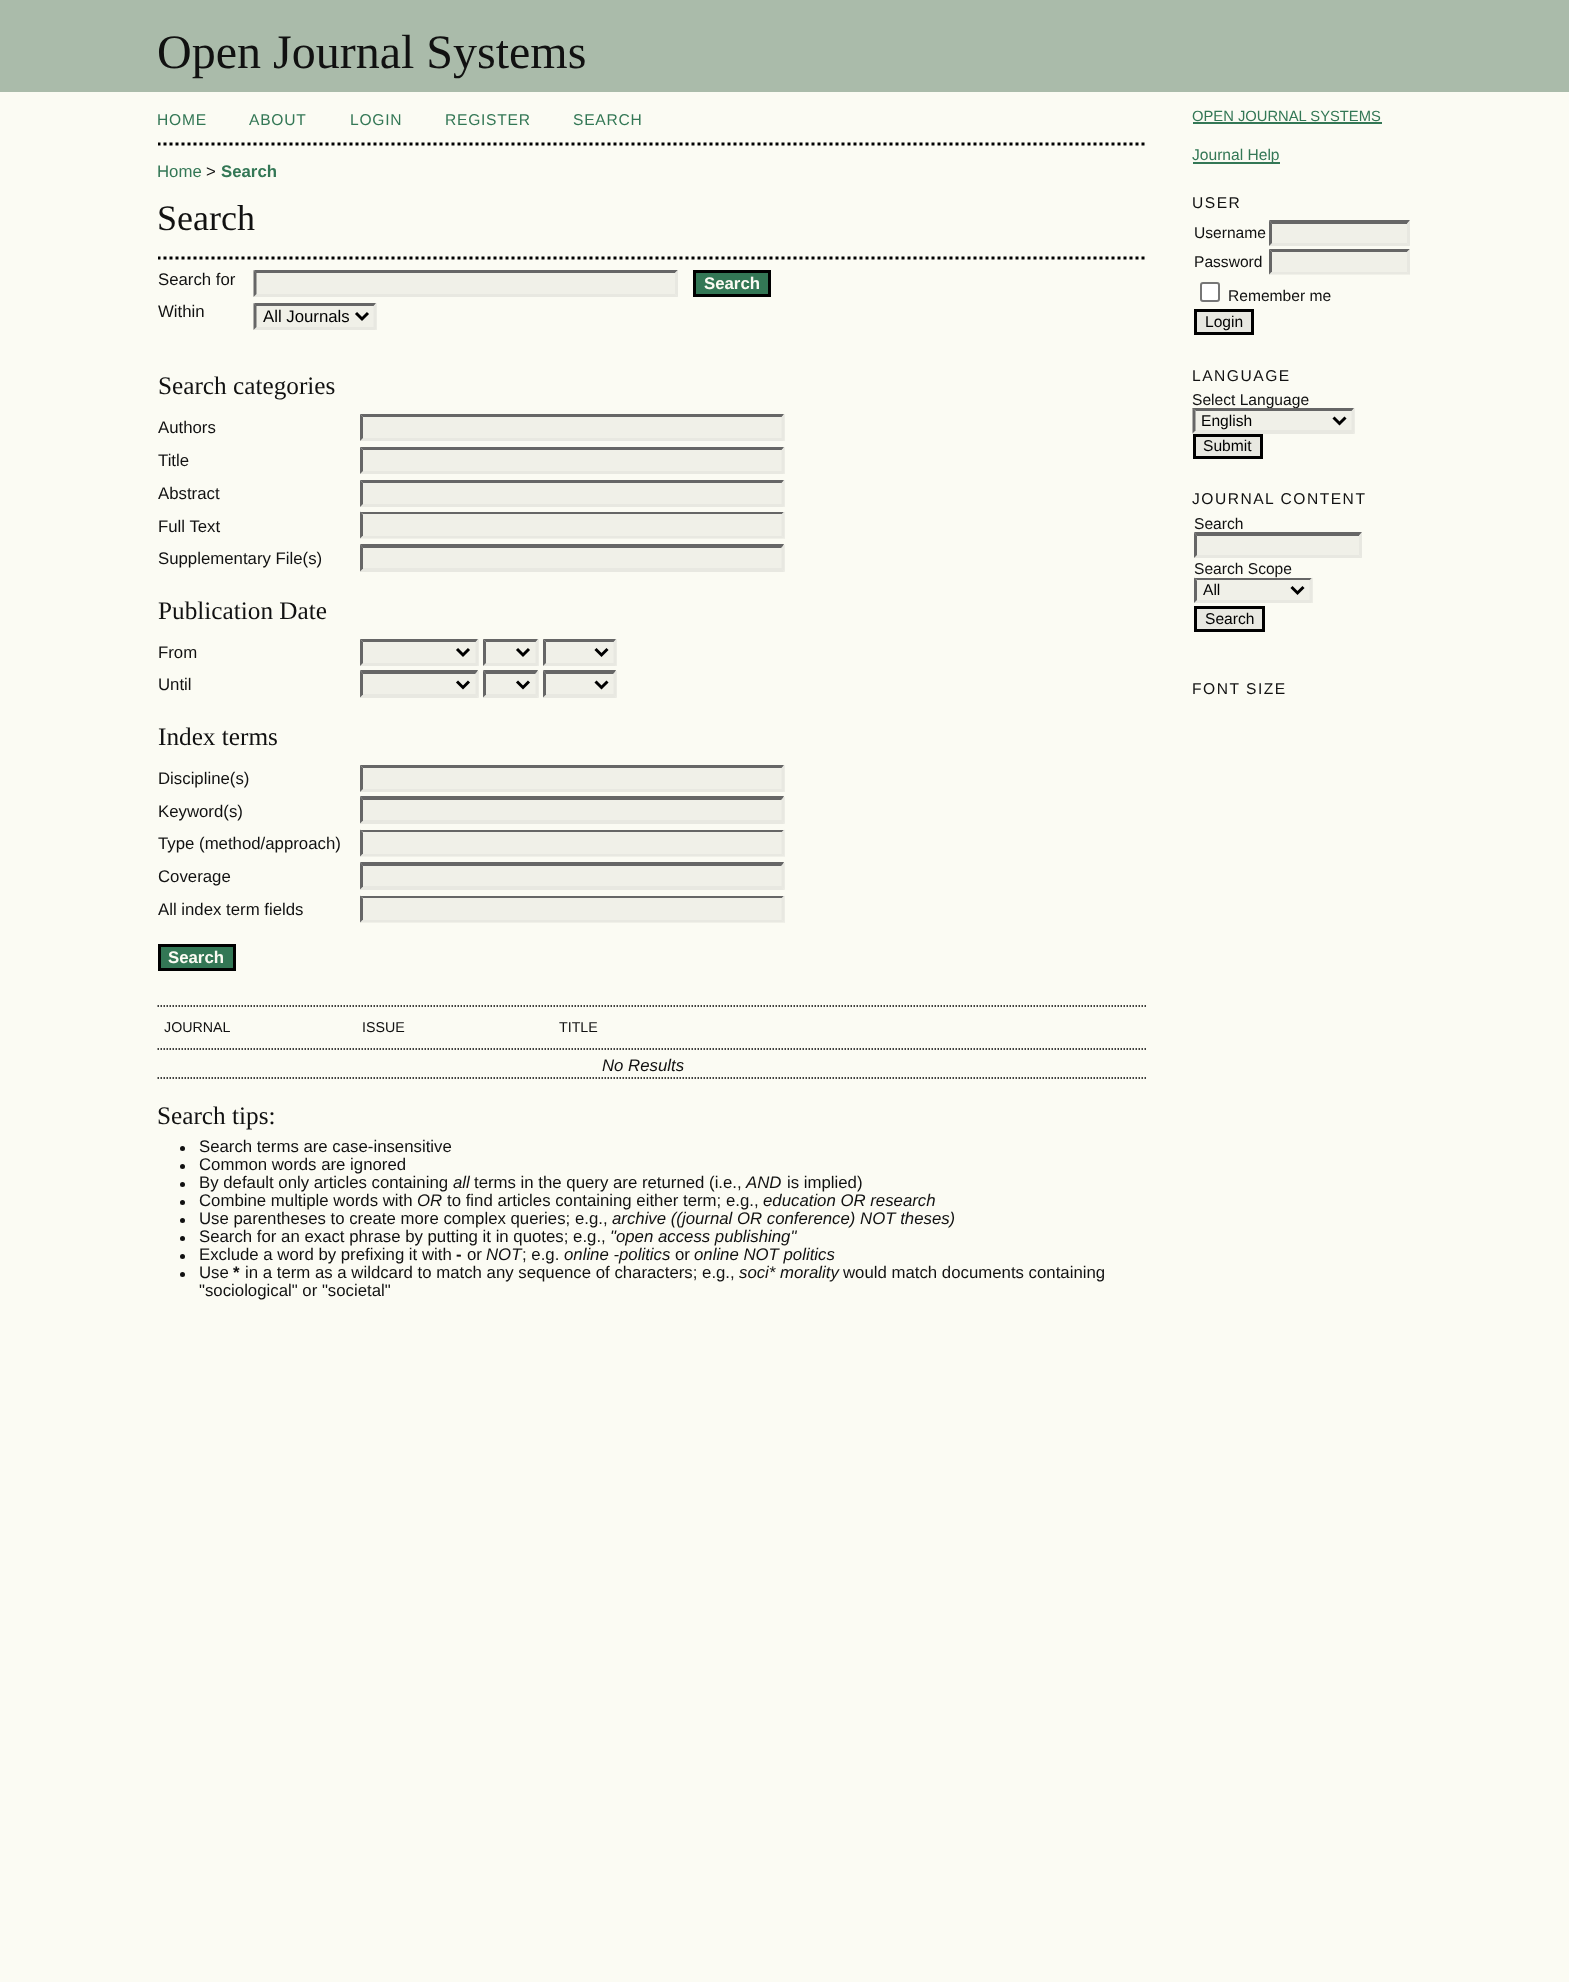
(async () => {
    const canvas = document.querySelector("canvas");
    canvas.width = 1569;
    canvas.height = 1982;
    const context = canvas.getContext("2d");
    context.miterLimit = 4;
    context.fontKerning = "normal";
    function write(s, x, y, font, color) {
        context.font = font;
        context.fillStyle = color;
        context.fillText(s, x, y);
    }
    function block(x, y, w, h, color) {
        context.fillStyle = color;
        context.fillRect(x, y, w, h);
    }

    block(0, 0, 1569, 1982, "rgb(251, 251, 243)");
    block(0, 0, 1569, 92, "rgb(170, 187, 170)");
    write("Open Journal Systems", 157, 68, "48px Liberation Serif", "rgb(17, 17, 17)");
    context.save();
    context.beginPath();
    context.rect(158, 92, 988, 1269);
    context.clip();
    context.beginPath();
    context.moveTo(157.5, 144);
    context.lineTo(1146, 144);
    context.strokeStyle = "rgb(0, 0, 0)";
    context.lineWidth = 3;
    context.setLineDash([3, 3]);
    context.stroke();
    context.restore();
    context.letterSpacing = "0.75px";
    write("HOME", 157, 125, "15.6px Liberation Sans", "rgb(51, 119, 85)");
    write("ABOUT", 249, 125, "15.6px Liberation Sans", "rgb(51, 119, 85)");
    write("LOGIN", 350, 125, "15.6px Liberation Sans", "rgb(51, 119, 85)");
    write("REGISTER", 445, 125, "15.6px Liberation Sans", "rgb(51, 119, 85)");
    write("SEARCH", 573, 125, "15.6px Liberation Sans", "rgb(51, 119, 85)");
    context.letterSpacing = "0px";
    write("Home", 157, 177, "16.8px Liberation Sans", "rgb(51, 119, 85)");
    write(">", 206, 177, "16.8px Liberation Sans", "rgb(17, 17, 17)");
    write("Search", 221, 177, "bold 16.8px Liberation Sans", "rgb(51, 119, 85)");
    write("Search", 157, 230, "36px Liberation Serif", "rgb(17, 17, 17)");
    context.save();
    context.beginPath();
    context.rect(158, 92, 988, 1269);
    context.clip();
    context.beginPath();
    context.moveTo(157.5, 258);
    context.lineTo(1146, 258);
    context.strokeStyle = "rgb(0, 0, 0)";
    context.lineWidth = 3;
    context.setLineDash([3, 3]);
    context.stroke();
    context.restore();
    write("Search for", 158, 285, "16.8px Liberation Sans", "rgb(17, 17, 17)");
    block(254, 270, 424, 27, "rgb(240, 240, 232)");
    context.fillStyle = "rgb(102, 102, 102)";
    context.beginPath();
    context.moveTo(254, 270);
    context.lineTo(678, 270);
    context.lineTo(675, 273);
    context.lineTo(256, 273);
    context.closePath();
    context.fill();
    context.fillStyle = "rgb(232, 232, 225)";
    context.beginPath();
    context.moveTo(678, 270);
    context.lineTo(678, 297);
    context.lineTo(675, 294);
    context.lineTo(675, 273);
    context.closePath();
    context.fill();
    context.beginPath();
    context.moveTo(678, 297);
    context.lineTo(254, 297);
    context.lineTo(256, 294);
    context.lineTo(675, 294);
    context.closePath();
    context.fill();
    context.fillStyle = "rgb(102, 102, 102)";
    context.beginPath();
    context.moveTo(253.5, 297);
    context.lineTo(253.5, 270);
    context.lineTo(256.5, 273);
    context.lineTo(256.5, 294);
    context.closePath();
    context.fill();
    context.fillStyle = "rgb(51, 119, 85)";
    context.beginPath();
    context.rect(694.5, 271.5, 75, 24);
    context.fill();
    context.strokeStyle = "rgb(0, 0, 0)";
    context.lineWidth = 3;
    context.stroke();
    write("Search", 704, 289, "bold 16.8px Liberation Sans", "rgb(251, 251, 243)");
    write("Within", 158, 317, "16.8px Liberation Sans", "rgb(17, 17, 17)");
    block(254, 303, 123, 27, "rgb(240, 240, 232)");
    context.fillStyle = "rgb(102, 102, 102)";
    context.beginPath();
    context.moveTo(254, 303);
    context.lineTo(376, 303);
    context.lineTo(374, 306);
    context.lineTo(256, 306);
    context.closePath();
    context.fill();
    context.fillStyle = "rgb(232, 232, 225)";
    context.beginPath();
    context.moveTo(376.5, 303);
    context.lineTo(376.5, 330);
    context.lineTo(373.5, 327);
    context.lineTo(373.5, 306);
    context.closePath();
    context.fill();
    context.beginPath();
    context.moveTo(376, 330);
    context.lineTo(254, 330);
    context.lineTo(256, 327);
    context.lineTo(374, 327);
    context.closePath();
    context.fill();
    context.fillStyle = "rgb(102, 102, 102)";
    context.beginPath();
    context.moveTo(253.5, 330);
    context.lineTo(253.5, 303);
    context.lineTo(256.5, 306);
    context.lineTo(256.5, 327);
    context.closePath();
    context.fill();
    context.beginPath();
    context.moveTo(356, 313);
    context.lineTo(362, 319);
    context.lineTo(368, 313);
    context.stroke();
    write("All Journals", 263, 322, "16.8px Liberation Sans", "rgb(0, 0, 0)");
    write("Search categories", 158, 394, "25.25px Liberation Serif", "rgb(17, 17, 17)");
    write("Authors", 158, 433, "16.8px Liberation Sans", "rgb(17, 17, 17)");
    block(360, 414, 425, 27, "rgb(240, 240, 232)");
    context.fillStyle = "rgb(102, 102, 102)";
    context.beginPath();
    context.moveTo(360, 414);
    context.lineTo(784, 414);
    context.lineTo(782, 417);
    context.lineTo(363, 417);
    context.closePath();
    context.fill();
    context.fillStyle = "rgb(232, 232, 225)";
    context.beginPath();
    context.moveTo(784.5, 414);
    context.lineTo(784.5, 441);
    context.lineTo(781.5, 438);
    context.lineTo(781.5, 417);
    context.closePath();
    context.fill();
    context.beginPath();
    context.moveTo(784, 441);
    context.lineTo(360, 441);
    context.lineTo(363, 438);
    context.lineTo(782, 438);
    context.closePath();
    context.fill();
    context.fillStyle = "rgb(102, 102, 102)";
    context.beginPath();
    context.moveTo(360, 441);
    context.lineTo(360, 414);
    context.lineTo(363, 417);
    context.lineTo(363, 438);
    context.closePath();
    context.fill();
    write("Title", 158, 466, "16.8px Liberation Sans", "rgb(17, 17, 17)");
    block(360, 447, 425, 27, "rgb(240, 240, 232)");
    context.fillStyle = "rgb(102, 102, 102)";
    context.beginPath();
    context.moveTo(360, 447);
    context.lineTo(784, 447);
    context.lineTo(782, 450);
    context.lineTo(363, 450);
    context.closePath();
    context.fill();
    context.fillStyle = "rgb(232, 232, 225)";
    context.beginPath();
    context.moveTo(784.5, 447);
    context.lineTo(784.5, 474);
    context.lineTo(781.5, 471);
    context.lineTo(781.5, 450);
    context.closePath();
    context.fill();
    context.beginPath();
    context.moveTo(784, 474);
    context.lineTo(360, 474);
    context.lineTo(363, 471);
    context.lineTo(782, 471);
    context.closePath();
    context.fill();
    context.fillStyle = "rgb(102, 102, 102)";
    context.beginPath();
    context.moveTo(360, 474);
    context.lineTo(360, 447);
    context.lineTo(363, 450);
    context.lineTo(363, 471);
    context.closePath();
    context.fill();
    write("Abstract", 158, 499, "16.8px Liberation Sans", "rgb(17, 17, 17)");
    block(360, 480, 425, 27, "rgb(240, 240, 232)");
    context.fillStyle = "rgb(102, 102, 102)";
    context.beginPath();
    context.moveTo(360, 480);
    context.lineTo(784, 480);
    context.lineTo(782, 483);
    context.lineTo(363, 483);
    context.closePath();
    context.fill();
    context.fillStyle = "rgb(232, 232, 225)";
    context.beginPath();
    context.moveTo(784.5, 480);
    context.lineTo(784.5, 507);
    context.lineTo(781.5, 504);
    context.lineTo(781.5, 483);
    context.closePath();
    context.fill();
    context.beginPath();
    context.moveTo(784, 507);
    context.lineTo(360, 507);
    context.lineTo(363, 504);
    context.lineTo(782, 504);
    context.closePath();
    context.fill();
    context.fillStyle = "rgb(102, 102, 102)";
    context.beginPath();
    context.moveTo(360, 507);
    context.lineTo(360, 480);
    context.lineTo(363, 483);
    context.lineTo(363, 504);
    context.closePath();
    context.fill();
    write("Full Text", 158, 532, "16.8px Liberation Sans", "rgb(17, 17, 17)");
    block(360, 512, 425, 27, "rgb(240, 240, 232)");
    context.fillStyle = "rgb(102, 102, 102)";
    context.beginPath();
    context.moveTo(360, 512);
    context.lineTo(784, 512);
    context.lineTo(782, 514);
    context.lineTo(363, 514);
    context.closePath();
    context.fill();
    context.fillStyle = "rgb(232, 232, 225)";
    context.beginPath();
    context.moveTo(784.5, 511.5);
    context.lineTo(784.5, 538.5);
    context.lineTo(781.5, 535.5);
    context.lineTo(781.5, 514.5);
    context.closePath();
    context.fill();
    context.beginPath();
    context.moveTo(784, 538);
    context.lineTo(360, 538);
    context.lineTo(363, 536);
    context.lineTo(782, 536);
    context.closePath();
    context.fill();
    context.fillStyle = "rgb(102, 102, 102)";
    context.beginPath();
    context.moveTo(360, 538.5);
    context.lineTo(360, 511.5);
    context.lineTo(363, 514.5);
    context.lineTo(363, 535.5);
    context.closePath();
    context.fill();
    write("Supplementary File(s)", 158, 564, "16.8px Liberation Sans", "rgb(17, 17, 17)");
    block(360, 545, 425, 27, "rgb(240, 240, 232)");
    context.fillStyle = "rgb(102, 102, 102)";
    context.beginPath();
    context.moveTo(360, 544);
    context.lineTo(784, 544);
    context.lineTo(782, 548);
    context.lineTo(363, 548);
    context.closePath();
    context.fill();
    context.fillStyle = "rgb(232, 232, 225)";
    context.beginPath();
    context.moveTo(784.5, 544.5);
    context.lineTo(784.5, 571.5);
    context.lineTo(781.5, 568.5);
    context.lineTo(781.5, 547.5);
    context.closePath();
    context.fill();
    context.beginPath();
    context.moveTo(784, 572);
    context.lineTo(360, 572);
    context.lineTo(363, 568);
    context.lineTo(782, 568);
    context.closePath();
    context.fill();
    context.fillStyle = "rgb(102, 102, 102)";
    context.beginPath();
    context.moveTo(360, 571.5);
    context.lineTo(360, 544.5);
    context.lineTo(363, 547.5);
    context.lineTo(363, 568.5);
    context.closePath();
    context.fill();
    write("Publication Date", 158, 619, "25.25px Liberation Serif", "rgb(17, 17, 17)");
    write("From", 158, 658, "16.8px Liberation Sans", "rgb(17, 17, 17)");
    block(360, 639, 119, 27, "rgb(240, 240, 232)");
    context.fillStyle = "rgb(102, 102, 102)";
    context.beginPath();
    context.moveTo(360, 639);
    context.lineTo(478, 639);
    context.lineTo(476, 642);
    context.lineTo(363, 642);
    context.closePath();
    context.fill();
    context.fillStyle = "rgb(232, 232, 225)";
    context.beginPath();
    context.moveTo(478.5, 639);
    context.lineTo(478.5, 666);
    context.lineTo(475.5, 663);
    context.lineTo(475.5, 642);
    context.closePath();
    context.fill();
    context.beginPath();
    context.moveTo(478, 666);
    context.lineTo(360, 666);
    context.lineTo(363, 663);
    context.lineTo(476, 663);
    context.closePath();
    context.fill();
    context.fillStyle = "rgb(102, 102, 102)";
    context.beginPath();
    context.moveTo(360, 666);
    context.lineTo(360, 639);
    context.lineTo(363, 642);
    context.lineTo(363, 663);
    context.closePath();
    context.fill();
    context.beginPath();
    context.moveTo(457, 649);
    context.lineTo(463, 655);
    context.lineTo(469, 649);
    context.stroke();
    block(483, 639, 56, 27, "rgb(240, 240, 232)");
    context.fillStyle = "rgb(102, 102, 102)";
    context.beginPath();
    context.moveTo(483, 639);
    context.lineTo(538, 639);
    context.lineTo(536, 642);
    context.lineTo(486, 642);
    context.closePath();
    context.fill();
    context.fillStyle = "rgb(232, 232, 225)";
    context.beginPath();
    context.moveTo(538.5, 639);
    context.lineTo(538.5, 666);
    context.lineTo(535.5, 663);
    context.lineTo(535.5, 642);
    context.closePath();
    context.fill();
    context.beginPath();
    context.moveTo(538, 666);
    context.lineTo(483, 666);
    context.lineTo(486, 663);
    context.lineTo(536, 663);
    context.closePath();
    context.fill();
    context.fillStyle = "rgb(102, 102, 102)";
    context.beginPath();
    context.moveTo(483, 666);
    context.lineTo(483, 639);
    context.lineTo(486, 642);
    context.lineTo(486, 663);
    context.closePath();
    context.fill();
    context.beginPath();
    context.moveTo(517, 649);
    context.lineTo(523, 655);
    context.lineTo(529, 649);
    context.stroke();
    block(543, 639, 74, 27, "rgb(240, 240, 232)");
    context.fillStyle = "rgb(102, 102, 102)";
    context.beginPath();
    context.moveTo(543, 639);
    context.lineTo(616, 639);
    context.lineTo(614, 642);
    context.lineTo(546, 642);
    context.closePath();
    context.fill();
    context.fillStyle = "rgb(232, 232, 225)";
    context.beginPath();
    context.moveTo(616.5, 639);
    context.lineTo(616.5, 666);
    context.lineTo(613.5, 663);
    context.lineTo(613.5, 642);
    context.closePath();
    context.fill();
    context.beginPath();
    context.moveTo(616, 666);
    context.lineTo(543, 666);
    context.lineTo(546, 663);
    context.lineTo(614, 663);
    context.closePath();
    context.fill();
    context.fillStyle = "rgb(102, 102, 102)";
    context.beginPath();
    context.moveTo(543, 666);
    context.lineTo(543, 639);
    context.lineTo(546, 642);
    context.lineTo(546, 663);
    context.closePath();
    context.fill();
    context.beginPath();
    context.moveTo(595.5, 649);
    context.lineTo(601.5, 655);
    context.lineTo(607.5, 649);
    context.stroke();
    write("Until", 158, 690, "16.8px Liberation Sans", "rgb(17, 17, 17)");
    block(360, 671, 119, 27, "rgb(240, 240, 232)");
    context.fillStyle = "rgb(102, 102, 102)";
    context.beginPath();
    context.moveTo(360, 670);
    context.lineTo(478, 670);
    context.lineTo(476, 674);
    context.lineTo(363, 674);
    context.closePath();
    context.fill();
    context.fillStyle = "rgb(232, 232, 225)";
    context.beginPath();
    context.moveTo(478.5, 670.5);
    context.lineTo(478.5, 697.5);
    context.lineTo(475.5, 694.5);
    context.lineTo(475.5, 673.5);
    context.closePath();
    context.fill();
    context.beginPath();
    context.moveTo(478, 698);
    context.lineTo(360, 698);
    context.lineTo(363, 694);
    context.lineTo(476, 694);
    context.closePath();
    context.fill();
    context.fillStyle = "rgb(102, 102, 102)";
    context.beginPath();
    context.moveTo(360, 697.5);
    context.lineTo(360, 670.5);
    context.lineTo(363, 673.5);
    context.lineTo(363, 694.5);
    context.closePath();
    context.fill();
    context.beginPath();
    context.moveTo(457, 681.5);
    context.lineTo(463, 687.5);
    context.lineTo(469, 681.5);
    context.stroke();
    block(483, 671, 56, 27, "rgb(240, 240, 232)");
    context.fillStyle = "rgb(102, 102, 102)";
    context.beginPath();
    context.moveTo(483, 670);
    context.lineTo(538, 670);
    context.lineTo(536, 674);
    context.lineTo(486, 674);
    context.closePath();
    context.fill();
    context.fillStyle = "rgb(232, 232, 225)";
    context.beginPath();
    context.moveTo(538.5, 670.5);
    context.lineTo(538.5, 697.5);
    context.lineTo(535.5, 694.5);
    context.lineTo(535.5, 673.5);
    context.closePath();
    context.fill();
    context.beginPath();
    context.moveTo(538, 698);
    context.lineTo(483, 698);
    context.lineTo(486, 694);
    context.lineTo(536, 694);
    context.closePath();
    context.fill();
    context.fillStyle = "rgb(102, 102, 102)";
    context.beginPath();
    context.moveTo(483, 697.5);
    context.lineTo(483, 670.5);
    context.lineTo(486, 673.5);
    context.lineTo(486, 694.5);
    context.closePath();
    context.fill();
    context.beginPath();
    context.moveTo(517, 681.5);
    context.lineTo(523, 687.5);
    context.lineTo(529, 681.5);
    context.stroke();
    block(543, 671, 74, 27, "rgb(240, 240, 232)");
    context.fillStyle = "rgb(102, 102, 102)";
    context.beginPath();
    context.moveTo(543, 670);
    context.lineTo(616, 670);
    context.lineTo(614, 674);
    context.lineTo(546, 674);
    context.closePath();
    context.fill();
    context.fillStyle = "rgb(232, 232, 225)";
    context.beginPath();
    context.moveTo(616.5, 670.5);
    context.lineTo(616.5, 697.5);
    context.lineTo(613.5, 694.5);
    context.lineTo(613.5, 673.5);
    context.closePath();
    context.fill();
    context.beginPath();
    context.moveTo(616, 698);
    context.lineTo(543, 698);
    context.lineTo(546, 694);
    context.lineTo(614, 694);
    context.closePath();
    context.fill();
    context.fillStyle = "rgb(102, 102, 102)";
    context.beginPath();
    context.moveTo(543, 697.5);
    context.lineTo(543, 670.5);
    context.lineTo(546, 673.5);
    context.lineTo(546, 694.5);
    context.closePath();
    context.fill();
    context.beginPath();
    context.moveTo(595.5, 681.5);
    context.lineTo(601.5, 687.5);
    context.lineTo(607.5, 681.5);
    context.stroke();
    write("Index terms", 158, 745, "25.25px Liberation Serif", "rgb(17, 17, 17)");
    write("Discipline(s)", 158, 784, "16.8px Liberation Sans", "rgb(17, 17, 17)");
    block(360, 765, 425, 27, "rgb(240, 240, 232)");
    context.fillStyle = "rgb(102, 102, 102)";
    context.beginPath();
    context.moveTo(360, 765);
    context.lineTo(784, 765);
    context.lineTo(782, 768);
    context.lineTo(363, 768);
    context.closePath();
    context.fill();
    context.fillStyle = "rgb(232, 232, 225)";
    context.beginPath();
    context.moveTo(784.5, 765);
    context.lineTo(784.5, 792);
    context.lineTo(781.5, 789);
    context.lineTo(781.5, 768);
    context.closePath();
    context.fill();
    context.beginPath();
    context.moveTo(784, 792);
    context.lineTo(360, 792);
    context.lineTo(363, 789);
    context.lineTo(782, 789);
    context.closePath();
    context.fill();
    context.fillStyle = "rgb(102, 102, 102)";
    context.beginPath();
    context.moveTo(360, 792);
    context.lineTo(360, 765);
    context.lineTo(363, 768);
    context.lineTo(363, 789);
    context.closePath();
    context.fill();
    write("Keyword(s)", 158, 817, "16.8px Liberation Sans", "rgb(17, 17, 17)");
    block(360, 797, 425, 27, "rgb(240, 240, 232)");
    context.fillStyle = "rgb(102, 102, 102)";
    context.beginPath();
    context.moveTo(360, 796);
    context.lineTo(784, 796);
    context.lineTo(782, 800);
    context.lineTo(363, 800);
    context.closePath();
    context.fill();
    context.fillStyle = "rgb(232, 232, 225)";
    context.beginPath();
    context.moveTo(784.5, 796.5);
    context.lineTo(784.5, 823.5);
    context.lineTo(781.5, 820.5);
    context.lineTo(781.5, 799.5);
    context.closePath();
    context.fill();
    context.beginPath();
    context.moveTo(784, 824);
    context.lineTo(360, 824);
    context.lineTo(363, 820);
    context.lineTo(782, 820);
    context.closePath();
    context.fill();
    context.fillStyle = "rgb(102, 102, 102)";
    context.beginPath();
    context.moveTo(360, 823.5);
    context.lineTo(360, 796.5);
    context.lineTo(363, 799.5);
    context.lineTo(363, 820.5);
    context.closePath();
    context.fill();
    write("Type (method/approach)", 158, 849, "16.8px Liberation Sans", "rgb(17, 17, 17)");
    block(360, 830, 425, 27, "rgb(240, 240, 232)");
    context.fillStyle = "rgb(102, 102, 102)";
    context.beginPath();
    context.moveTo(360, 830);
    context.lineTo(784, 830);
    context.lineTo(782, 832);
    context.lineTo(363, 832);
    context.closePath();
    context.fill();
    context.fillStyle = "rgb(232, 232, 225)";
    context.beginPath();
    context.moveTo(784.5, 829.5);
    context.lineTo(784.5, 856.5);
    context.lineTo(781.5, 853.5);
    context.lineTo(781.5, 832.5);
    context.closePath();
    context.fill();
    context.beginPath();
    context.moveTo(784, 856);
    context.lineTo(360, 856);
    context.lineTo(363, 854);
    context.lineTo(782, 854);
    context.closePath();
    context.fill();
    context.fillStyle = "rgb(102, 102, 102)";
    context.beginPath();
    context.moveTo(360, 856.5);
    context.lineTo(360, 829.5);
    context.lineTo(363, 832.5);
    context.lineTo(363, 853.5);
    context.closePath();
    context.fill();
    write("Coverage", 158, 882, "16.8px Liberation Sans", "rgb(17, 17, 17)");
    block(360, 863, 425, 27, "rgb(240, 240, 232)");
    context.fillStyle = "rgb(102, 102, 102)";
    context.beginPath();
    context.moveTo(360, 862);
    context.lineTo(784, 862);
    context.lineTo(782, 866);
    context.lineTo(363, 866);
    context.closePath();
    context.fill();
    context.fillStyle = "rgb(232, 232, 225)";
    context.beginPath();
    context.moveTo(784.5, 862.5);
    context.lineTo(784.5, 889.5);
    context.lineTo(781.5, 886.5);
    context.lineTo(781.5, 865.5);
    context.closePath();
    context.fill();
    context.beginPath();
    context.moveTo(784, 890);
    context.lineTo(360, 890);
    context.lineTo(363, 886);
    context.lineTo(782, 886);
    context.closePath();
    context.fill();
    context.fillStyle = "rgb(102, 102, 102)";
    context.beginPath();
    context.moveTo(360, 889.5);
    context.lineTo(360, 862.5);
    context.lineTo(363, 865.5);
    context.lineTo(363, 886.5);
    context.closePath();
    context.fill();
    write("All index term fields", 158, 915, "16.8px Liberation Sans", "rgb(17, 17, 17)");
    block(360, 896, 425, 27, "rgb(240, 240, 232)");
    context.fillStyle = "rgb(102, 102, 102)";
    context.beginPath();
    context.moveTo(360, 896);
    context.lineTo(784, 896);
    context.lineTo(782, 898);
    context.lineTo(363, 898);
    context.closePath();
    context.fill();
    context.fillStyle = "rgb(232, 232, 225)";
    context.beginPath();
    context.moveTo(784.5, 895.5);
    context.lineTo(784.5, 922.5);
    context.lineTo(781.5, 919.5);
    context.lineTo(781.5, 898.5);
    context.closePath();
    context.fill();
    context.beginPath();
    context.moveTo(784, 922);
    context.lineTo(360, 922);
    context.lineTo(363, 920);
    context.lineTo(782, 920);
    context.closePath();
    context.fill();
    context.fillStyle = "rgb(102, 102, 102)";
    context.beginPath();
    context.moveTo(360, 922.5);
    context.lineTo(360, 895.5);
    context.lineTo(363, 898.5);
    context.lineTo(363, 919.5);
    context.closePath();
    context.fill();
    context.fillStyle = "rgb(51, 119, 85)";
    context.beginPath();
    context.rect(159.5, 945.5, 75, 24);
    context.fill();
    context.stroke();
    write("Search", 168, 963, "bold 16.8px Liberation Sans", "rgb(251, 251, 243)");
    context.beginPath();
    context.moveTo(157.5, 1006);
    context.lineTo(1146, 1006);
    context.lineWidth = 1.5;
    context.setLineDash([1.5, 1.5]);
    context.stroke();
    write("JOURNAL", 164, 1032, "14.25px Liberation Sans", "rgb(17, 17, 17)");
    write("ISSUE", 362, 1032, "14.25px Liberation Sans", "rgb(17, 17, 17)");
    write("TITLE", 559, 1032, "14.25px Liberation Sans", "rgb(17, 17, 17)");
    context.beginPath();
    context.moveTo(157.5, 1049);
    context.lineTo(1146, 1049);
    context.stroke();
    write("No Results", 602, 1071, "italic 16.8px Liberation Sans", "rgb(17, 17, 17)");
    context.beginPath();
    context.moveTo(157.5, 1078);
    context.lineTo(1146, 1078);
    context.stroke();
    write("Search tips:", 157, 1124, "25.25px Liberation Serif", "rgb(17, 17, 17)");
    context.beginPath();
    context.arc(182.5, 1148.5, 2.5, 0, Math.PI * 2);
    context.fill();
    write("Search terms are case-insensitive", 199, 1152, "16.8px Liberation Sans", "rgb(17, 17, 17)");
    context.beginPath();
    context.arc(182.5, 1166.5, 2.5, 0, Math.PI * 2);
    context.fill();
    write("Common words are ignored", 199, 1170, "16.8px Liberation Sans", "rgb(17, 17, 17)");
    context.beginPath();
    context.arc(182.5, 1184.5, 2.5, 0, Math.PI * 2);
    context.fill();
    write("By default only articles containing", 199, 1188, "16.8px Liberation Sans", "rgb(17, 17, 17)");
    write("all", 453, 1188, "italic 16.8px Liberation Sans", "rgb(17, 17, 17)");
    write("terms in the query are returned (i.e.,", 474, 1188, "16.8px Liberation Sans", "rgb(17, 17, 17)");
    write("AND", 746, 1188, "italic 16.8px Liberation Sans", "rgb(17, 17, 17)");
    write("is implied)", 787, 1188, "16.8px Liberation Sans", "rgb(17, 17, 17)");
    context.beginPath();
    context.arc(182.5, 1202.5, 2.5, 0, Math.PI * 2);
    context.fill();
    write("Combine multiple words with", 199, 1206, "16.8px Liberation Sans", "rgb(17, 17, 17)");
    write("OR", 417, 1206, "italic 16.8px Liberation Sans", "rgb(17, 17, 17)");
    write("to find articles containing either term; e.g.,", 447, 1206, "16.8px Liberation Sans", "rgb(17, 17, 17)");
    write("education OR research", 763, 1206, "italic 16.8px Liberation Sans", "rgb(17, 17, 17)");
    context.beginPath();
    context.arc(182.5, 1220.5, 2.5, 0, Math.PI * 2);
    context.fill();
    write("Use parentheses to create more complex queries; e.g.,", 199, 1224, "16.8px Liberation Sans", "rgb(17, 17, 17)");
    write("archive ((journal OR conference) NOT theses)", 612, 1224, "italic 16.8px Liberation Sans", "rgb(17, 17, 17)");
    context.beginPath();
    context.arc(182.5, 1238.5, 2.5, 0, Math.PI * 2);
    context.fill();
    write("Search for an exact phrase by putting it in quotes; e.g.,", 199, 1242, "16.8px Liberation Sans", "rgb(17, 17, 17)");
    write("\"open access publishing\"", 610, 1242, "italic 16.8px Liberation Sans", "rgb(17, 17, 17)");
    context.beginPath();
    context.arc(182.5, 1256.5, 2.5, 0, Math.PI * 2);
    context.fill();
    write("Exclude a word by prefixing it with", 199, 1260, "16.8px Liberation Sans", "rgb(17, 17, 17)");
    write("-", 456, 1260, "bold 16.8px Liberation Sans", "rgb(17, 17, 17)");
    write("or", 467, 1260, "16.8px Liberation Sans", "rgb(17, 17, 17)");
    write("NOT", 486, 1260, "italic 16.8px Liberation Sans", "rgb(17, 17, 17)");
    write("; e.g.", 522, 1260, "16.8px Liberation Sans", "rgb(17, 17, 17)");
    write("online -politics", 564, 1260, "italic 16.8px Liberation Sans", "rgb(17, 17, 17)");
    write("or", 675, 1260, "16.8px Liberation Sans", "rgb(17, 17, 17)");
    write("online NOT politics", 694, 1260, "italic 16.8px Liberation Sans", "rgb(17, 17, 17)");
    write("Use", 199, 1278, "16.8px Liberation Sans", "rgb(17, 17, 17)");
    write("*", 233, 1278, "bold 16.8px Liberation Sans", "rgb(17, 17, 17)");
    write("in a term as a wildcard to match any sequence of characters; e.g.,", 245, 1278, "16.8px Liberation Sans", "rgb(17, 17, 17)");
    write("soci* morality", 739, 1278, "italic 16.8px Liberation Sans", "rgb(17, 17, 17)");
    write("would match documents containing", 843, 1278, "16.8px Liberation Sans", "rgb(17, 17, 17)");
    context.beginPath();
    context.arc(182.5, 1274.5, 2.5, 0, Math.PI * 2);
    context.fill();
    write("\"sociological\" or \"societal\"", 199, 1296, "16.8px Liberation Sans", "rgb(17, 17, 17)");
    write("OPEN JOURNAL SYSTEMS", 1192, 121, "14.75px Liberation Sans", "rgb(51, 119, 85)");
    block(1193, 122, 189, 2, "rgb(51, 119, 85)");
    block(1193, 162, 87, 2, "rgb(51, 119, 85)");
    write("Journal Help", 1192, 160, "15.6px Liberation Sans", "rgb(51, 119, 85)");
    context.letterSpacing = "1.5px";
    write("USER", 1192, 208, "15.6px Liberation Sans", "rgb(17, 17, 17)");
    context.letterSpacing = "0px";
    write("Username", 1194, 238, "15.6px Liberation Sans", "rgb(17, 17, 17)");
    block(1269, 221, 141, 25, "rgb(240, 240, 232)");
    context.fillStyle = "rgb(102, 102, 102)";
    context.beginPath();
    context.moveTo(1269, 220);
    context.lineTo(1410, 220);
    context.lineTo(1407, 224);
    context.lineTo(1272, 224);
    context.closePath();
    context.fill();
    context.fillStyle = "rgb(232, 232, 225)";
    context.beginPath();
    context.moveTo(1410, 220.5);
    context.lineTo(1410, 246);
    context.lineTo(1407, 243);
    context.lineTo(1407, 223.5);
    context.closePath();
    context.fill();
    context.beginPath();
    context.moveTo(1410, 246);
    context.lineTo(1269, 246);
    context.lineTo(1272, 243);
    context.lineTo(1407, 243);
    context.closePath();
    context.fill();
    context.fillStyle = "rgb(102, 102, 102)";
    context.beginPath();
    context.moveTo(1269, 246);
    context.lineTo(1269, 220.5);
    context.lineTo(1272, 223.5);
    context.lineTo(1272, 243);
    context.closePath();
    context.fill();
    write("Password", 1194, 267, "15.6px Liberation Sans", "rgb(17, 17, 17)");
    block(1269, 249, 141, 26, "rgb(240, 240, 232)");
    context.fillStyle = "rgb(102, 102, 102)";
    context.beginPath();
    context.moveTo(1269, 249);
    context.lineTo(1410, 249);
    context.lineTo(1407, 252);
    context.lineTo(1272, 252);
    context.closePath();
    context.fill();
    context.fillStyle = "rgb(232, 232, 225)";
    context.beginPath();
    context.moveTo(1410, 249);
    context.lineTo(1410, 274.5);
    context.lineTo(1407, 271.5);
    context.lineTo(1407, 252);
    context.closePath();
    context.fill();
    context.beginPath();
    context.moveTo(1410, 274);
    context.lineTo(1269, 274);
    context.lineTo(1272, 272);
    context.lineTo(1407, 272);
    context.closePath();
    context.fill();
    context.fillStyle = "rgb(102, 102, 102)";
    context.beginPath();
    context.moveTo(1269, 274.5);
    context.lineTo(1269, 249);
    context.lineTo(1272, 252);
    context.lineTo(1272, 271.5);
    context.closePath();
    context.fill();
    context.fillStyle = "rgb(255, 255, 255)";
    context.beginPath();
    context.roundRect(1201, 283, 18, 18, 2);
    context.fill();
    context.strokeStyle = "rgb(118, 118, 118)";
    context.lineWidth = 2;
    context.setLineDash([]);
    context.stroke();
    write("Remember me", 1228, 301, "15.6px Liberation Sans", "rgb(17, 17, 17)");
    context.fillStyle = "rgb(232, 232, 225)";
    context.beginPath();
    context.rect(1195.5, 310.5, 57, 23);
    context.fill();
    context.strokeStyle = "rgb(0, 0, 0)";
    context.lineWidth = 3;
    context.stroke();
    write("Login", 1205, 327, "15.6px Liberation Sans", "rgb(0, 0, 0)");
    context.letterSpacing = "1.5px";
    write("LANGUAGE", 1192, 381, "15.6px Liberation Sans", "rgb(17, 17, 17)");
    context.letterSpacing = "0px";
    write("Select Language", 1192, 405, "15.6px Liberation Sans", "rgb(17, 17, 17)");
    block(1193, 408, 162, 26, "rgb(240, 240, 232)");
    context.fillStyle = "rgb(102, 102, 102)";
    context.beginPath();
    context.moveTo(1192, 408);
    context.lineTo(1354, 408);
    context.lineTo(1352, 411);
    context.lineTo(1196, 411);
    context.closePath();
    context.fill();
    context.fillStyle = "rgb(232, 232, 225)";
    context.beginPath();
    context.moveTo(1354.5, 408);
    context.lineTo(1354.5, 433.5);
    context.lineTo(1351.5, 430.5);
    context.lineTo(1351.5, 411);
    context.closePath();
    context.fill();
    context.beginPath();
    context.moveTo(1354, 434);
    context.lineTo(1192, 434);
    context.lineTo(1196, 430);
    context.lineTo(1352, 430);
    context.closePath();
    context.fill();
    context.fillStyle = "rgb(102, 102, 102)";
    context.beginPath();
    context.moveTo(1192.5, 433.5);
    context.lineTo(1192.5, 408);
    context.lineTo(1195.5, 411);
    context.lineTo(1195.5, 430.5);
    context.closePath();
    context.fill();
    context.beginPath();
    context.moveTo(1333.5, 417.5);
    context.lineTo(1339.5, 423.5);
    context.lineTo(1345.5, 417.5);
    context.stroke();
    write("English", 1201, 426, "15.6px Liberation Sans", "rgb(0, 0, 0)");
    context.fillStyle = "rgb(232, 232, 225)";
    context.beginPath();
    context.rect(1194.5, 435.5, 67, 22);
    context.fill();
    context.stroke();
    write("Submit", 1203, 451, "15.6px Liberation Sans", "rgb(0, 0, 0)");
    context.letterSpacing = "1.5px";
    write("JOURNAL CONTENT", 1192, 504, "15.6px Liberation Sans", "rgb(17, 17, 17)");
    context.letterSpacing = "0px";
    write("Search", 1194, 529, "15.6px Liberation Sans", "rgb(17, 17, 17)");
    block(1194, 533, 168, 25, "rgb(240, 240, 232)");
    context.fillStyle = "rgb(102, 102, 102)";
    context.beginPath();
    context.moveTo(1194, 532);
    context.lineTo(1362, 532);
    context.lineTo(1359, 536);
    context.lineTo(1197, 536);
    context.closePath();
    context.fill();
    context.fillStyle = "rgb(232, 232, 225)";
    context.beginPath();
    context.moveTo(1362, 532.5);
    context.lineTo(1362, 558);
    context.lineTo(1359, 555);
    context.lineTo(1359, 535.5);
    context.closePath();
    context.fill();
    context.beginPath();
    context.moveTo(1362, 558);
    context.lineTo(1194, 558);
    context.lineTo(1197, 555);
    context.lineTo(1359, 555);
    context.closePath();
    context.fill();
    context.fillStyle = "rgb(102, 102, 102)";
    context.beginPath();
    context.moveTo(1194, 558);
    context.lineTo(1194, 532.5);
    context.lineTo(1197, 535.5);
    context.lineTo(1197, 555);
    context.closePath();
    context.fill();
    write("Search Scope", 1194, 574, "15.6px Liberation Sans", "rgb(17, 17, 17)");
    block(1194, 578, 119, 25, "rgb(240, 240, 232)");
    context.fillStyle = "rgb(102, 102, 102)";
    context.beginPath();
    context.moveTo(1194, 578);
    context.lineTo(1312, 578);
    context.lineTo(1310, 580);
    context.lineTo(1197, 580);
    context.closePath();
    context.fill();
    context.fillStyle = "rgb(232, 232, 225)";
    context.beginPath();
    context.moveTo(1312.5, 577.5);
    context.lineTo(1312.5, 603);
    context.lineTo(1309.5, 600);
    context.lineTo(1309.5, 580.5);
    context.closePath();
    context.fill();
    context.beginPath();
    context.moveTo(1312, 603);
    context.lineTo(1194, 603);
    context.lineTo(1197, 600);
    context.lineTo(1310, 600);
    context.closePath();
    context.fill();
    context.fillStyle = "rgb(102, 102, 102)";
    context.beginPath();
    context.moveTo(1194, 603);
    context.lineTo(1194, 577.5);
    context.lineTo(1197, 580.5);
    context.lineTo(1197, 600);
    context.closePath();
    context.fill();
    context.beginPath();
    context.moveTo(1291.5, 587);
    context.lineTo(1297.5, 593);
    context.lineTo(1303.5, 587);
    context.stroke();
    write("All", 1203, 595, "15.6px Liberation Sans", "rgb(0, 0, 0)");
    context.fillStyle = "rgb(232, 232, 225)";
    context.beginPath();
    context.rect(1195.5, 607.5, 68, 23);
    context.fill();
    context.stroke();
    write("Search", 1205, 624, "15.6px Liberation Sans", "rgb(0, 0, 0)");
    context.letterSpacing = "1.5px";
    write("FONT SIZE", 1192, 694, "15.6px Liberation Sans", "rgb(17, 17, 17)");
})();
